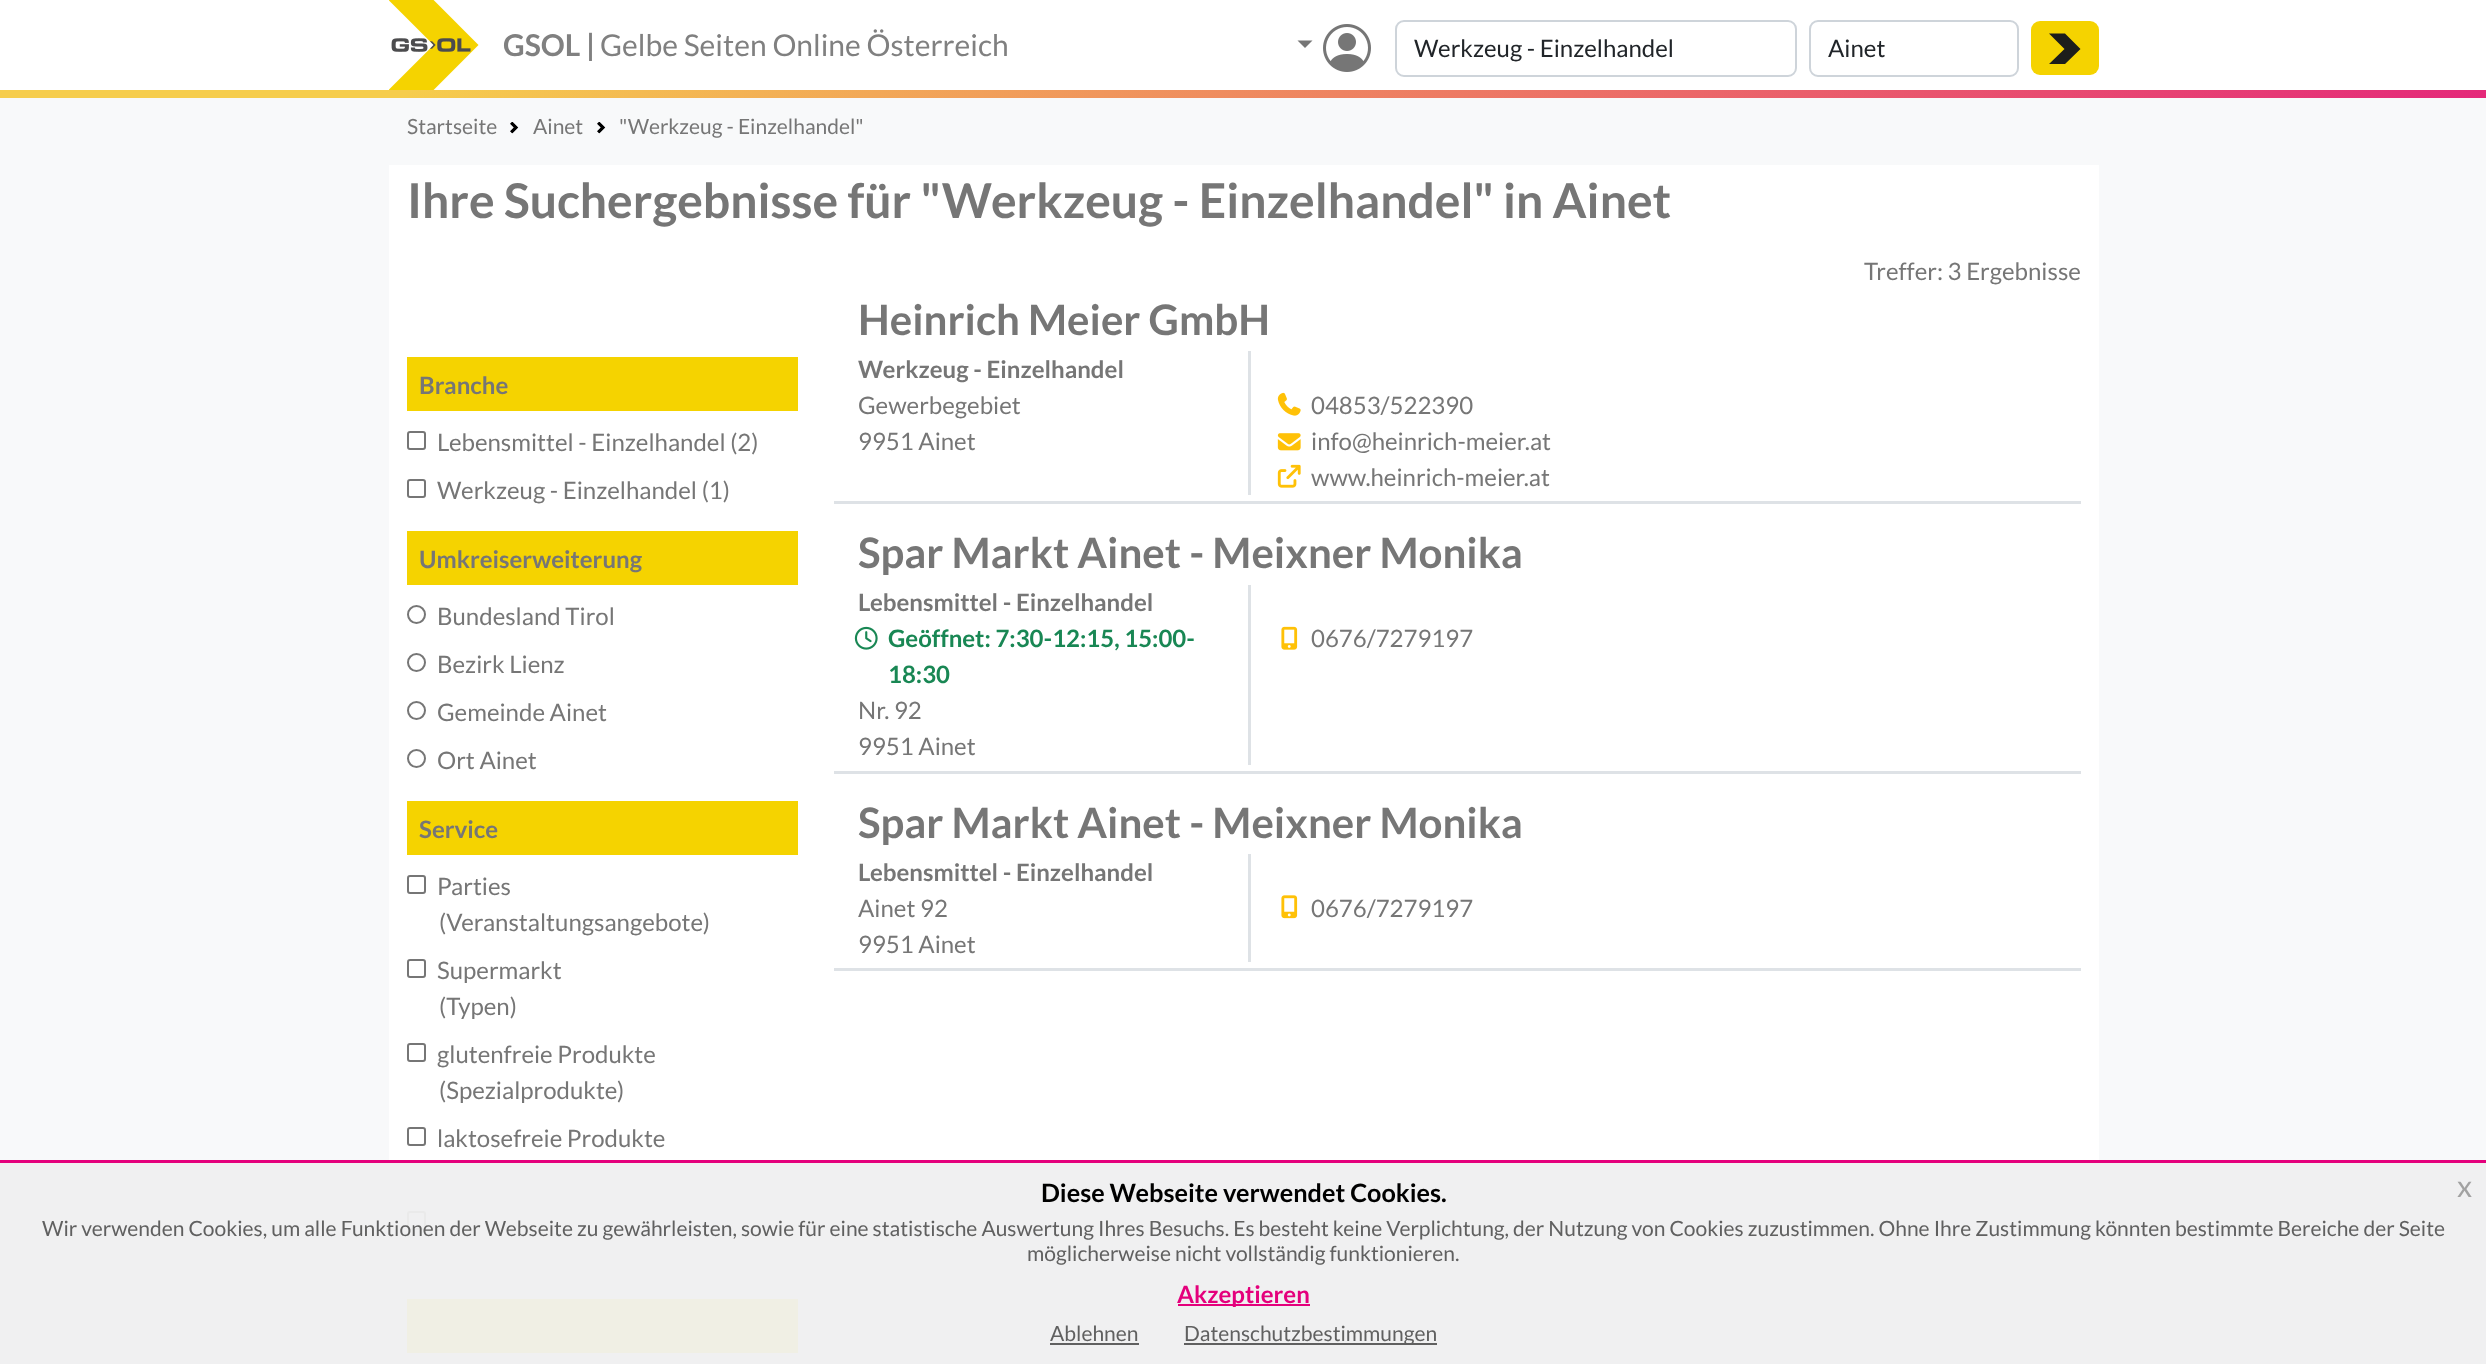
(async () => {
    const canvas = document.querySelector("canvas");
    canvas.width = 2486;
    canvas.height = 1364;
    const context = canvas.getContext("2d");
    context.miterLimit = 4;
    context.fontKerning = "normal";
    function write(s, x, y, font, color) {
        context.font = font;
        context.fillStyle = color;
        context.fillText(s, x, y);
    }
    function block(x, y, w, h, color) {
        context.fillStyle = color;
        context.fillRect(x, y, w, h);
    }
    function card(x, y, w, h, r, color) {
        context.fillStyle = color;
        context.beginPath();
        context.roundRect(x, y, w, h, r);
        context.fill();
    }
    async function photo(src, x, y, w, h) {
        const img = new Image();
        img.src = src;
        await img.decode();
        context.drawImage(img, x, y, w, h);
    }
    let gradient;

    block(0, 0, 2486, 1364, "rgb(255, 255, 255)");
    await photo("media/1.png", 389, 0, 90, 90);
    write("GSOL |", 503, 56, "bold 30px Lato", "rgb(128, 128, 128)");
    write("Gelbe Seiten Online Österreich", 600, 56, "30px Lato", "rgb(128, 128, 128)");
    context.fillStyle = "rgb(118, 118, 118)";
    context.beginPath();
    context.moveTo(1297.5, 40.5);
    context.lineTo(1312.5, 40.5);
    context.lineTo(1305, 48);
    context.closePath();
    context.fill();
    await photo("media/2.png", 1323, 24, 48, 48);
    context.beginPath();
    context.roundRect(1396, 21, 400, 55, 8);
    context.strokeStyle = "rgb(206, 212, 218)";
    context.lineWidth = 2;
    context.stroke();
    write("Werkzeug - Einzelhandel", 1414, 57, "24px Lato", "rgb(33, 37, 41)");
    context.beginPath();
    context.roundRect(1810, 21, 208, 55, 8);
    context.stroke();
    write("Ainet", 1828, 57, "24px Lato", "rgb(33, 37, 41)");
    card(2031, 21, 68, 54, 9, "rgb(245, 211, 0)");
    context.fillStyle = "rgb(29, 29, 27)";
    context.beginPath();
    context.moveTo(2065, 64);
    context.lineTo(2049, 64);
    context.lineTo(2064.5, 49);
    context.lineTo(2049, 33.5);
    context.lineTo(2065, 33.5);
    context.lineTo(2080.5, 49);
    context.closePath();
    context.fill();
    gradient = context.createLinearGradient(1020, -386, 1512, 669);
    gradient.addColorStop(0.15, "rgb(246, 205, 77)");
    gradient.addColorStop(1, "rgb(226, 20, 127)");
    context.fillStyle = gradient;
    context.fillRect(0, 90, 2486, 8);
    block(0, 98, 2486, 1062, "rgb(248, 249, 250)");
    block(0, 1163, 2486, 201, "rgb(240, 240, 241)");
    write("Startseite", 407, 134, "21px Lato", "rgb(118, 118, 118)");
    await photo("media/3.png", 510, 122, 9, 12);
    write("Ainet", 533, 134, "21px Lato", "rgb(118, 118, 118)");
    await photo("media/3.png", 597, 122, 9, 12);
    write("\"Werkzeug - Einzelhandel\"", 619, 134, "21px Lato", "rgb(118, 118, 118)");
    block(389, 165, 1710, 995, "rgb(255, 255, 255)");
    write("Ihre Suchergebnisse für \"Werkzeug - Einzelhandel\" in Ainet", 407, 218, "bold 48px Lato", "rgb(118, 118, 118)");
    write("Treffer: 3 Ergebnisse", 1864, 280, "24px Lato", "rgb(118, 118, 118)");
    block(407, 357, 391, 54, "rgb(245, 211, 0)");
    write("Branche", 419, 394, "bold 24px Lato", "rgb(118, 118, 118)");
    context.beginPath();
    context.roundRect(408, 432, 17, 17, 2);
    context.strokeStyle = "rgb(118, 118, 118)";
    context.stroke();
    write("Lebensmittel - Einzelhandel (2)", 437, 451, "24px Lato", "rgb(118, 118, 118)");
    context.beginPath();
    context.roundRect(408, 480, 17, 17, 2);
    context.stroke();
    write("Werkzeug - Einzelhandel (1)", 437, 499, "24px Lato", "rgb(118, 118, 118)");
    block(407, 531, 391, 54, "rgb(245, 211, 0)");
    write("Umkreiserweiterung", 419, 568, "bold 24px Lato", "rgb(118, 118, 118)");
    context.beginPath();
    context.arc(416.5, 614.5, 8.5, 0, Math.PI * 2);
    context.stroke();
    write("Bundesland Tirol", 437, 625, "24px Lato", "rgb(118, 118, 118)");
    context.beginPath();
    context.arc(416.5, 662.5, 8.5, 0, Math.PI * 2);
    context.stroke();
    write("Bezirk Lienz", 437, 673, "24px Lato", "rgb(118, 118, 118)");
    context.beginPath();
    context.arc(416.5, 710.5, 8.5, 0, Math.PI * 2);
    context.stroke();
    write("Gemeinde Ainet", 437, 721, "24px Lato", "rgb(118, 118, 118)");
    context.beginPath();
    context.arc(416.5, 758.5, 8.5, 0, Math.PI * 2);
    context.stroke();
    write("Ort Ainet", 437, 769, "24px Lato", "rgb(118, 118, 118)");
    block(407, 801, 391, 54, "rgb(245, 211, 0)");
    write("Service", 419, 838, "bold 24px Lato", "rgb(118, 118, 118)");
    context.beginPath();
    context.roundRect(408, 876, 17, 17, 2);
    context.stroke();
    write("Parties", 437, 895, "24px Lato", "rgb(118, 118, 118)");
    write("(Veranstaltungsangebote)", 439, 931, "24px Lato", "rgb(118, 118, 118)");
    context.beginPath();
    context.roundRect(408, 960, 17, 17, 2);
    context.stroke();
    write("Supermarkt", 437, 979, "24px Lato", "rgb(118, 118, 118)");
    write("(Typen)", 439, 1015, "24px Lato", "rgb(118, 118, 118)");
    context.beginPath();
    context.roundRect(408, 1044, 17, 17, 2);
    context.stroke();
    write("glutenfreie Produkte", 437, 1063, "24px Lato", "rgb(118, 118, 118)");
    write("(Spezialprodukte)", 439, 1099, "24px Lato", "rgb(118, 118, 118)");
    context.beginPath();
    context.roundRect(408, 1128, 17, 17, 2);
    context.stroke();
    write("laktosefreie Produkte", 437, 1147, "24px Lato", "rgb(118, 118, 118)");
    context.beginPath();
    context.roundRect(408, 1212, 17, 17, 2);
    context.strokeStyle = "rgb(234, 234, 234)";
    context.stroke();
    block(407, 1299, 391, 54, "rgb(240, 239, 228)");
    block(834, 501, 1247, 3, "rgb(222, 226, 230)");
    write("Heinrich Meier GmbH", 858, 335, "bold 42px Lato", "rgb(118, 118, 118)");
    block(1248, 351, 3, 144, "rgb(222, 226, 230)");
    write("Werkzeug - Einzelhandel", 858, 378, "bold 24px Lato", "rgb(118, 118, 118)");
    write("Gewerbegebiet", 858, 414, "24px Lato", "rgb(118, 118, 118)");
    write("9951 Ainet", 858, 450, "24px Lato", "rgb(118, 118, 118)");
    await photo("media/4.png", 1277, 392, 24, 24);
    write("04853/522390", 1311, 414, "24px Lato", "rgb(118, 118, 118)");
    await photo("media/5.png", 1277, 433, 24, 18);
    write("info@heinrich-meier.at", 1311, 450, "24px Lato", "rgb(118, 118, 118)");
    await photo("media/6.png", 1277, 464, 24, 24);
    write("www.heinrich-meier.at", 1311, 486, "24px Lato", "rgb(118, 118, 118)");
    block(834, 771, 1247, 3, "rgb(222, 226, 230)");
    write("Spar Markt Ainet - Meixner Monika", 858, 568, "bold 42px Lato", "rgb(118, 118, 118)");
    block(1248, 585, 3, 180, "rgb(222, 226, 230)");
    write("Lebensmittel - Einzelhandel", 858, 611, "bold 24px Lato", "rgb(118, 118, 118)");
    await photo("media/7.png", 854, 626, 24, 24);
    write("Geöffnet: 7:30-12:15, 15:00-", 888, 647, "bold 24px Lato", "rgb(25, 135, 84)");
    write("18:30", 888, 683, "bold 24px Lato", "rgb(25, 135, 84)");
    write("Nr. 92", 858, 719, "24px Lato", "rgb(118, 118, 118)");
    write("9951 Ainet", 858, 755, "24px Lato", "rgb(118, 118, 118)");
    await photo("media/8.png", 1281, 626, 17, 24);
    write("0676/7279197", 1311, 647, "24px Lato", "rgb(118, 118, 118)");
    block(834, 968, 1247, 3, "rgb(222, 226, 230)");
    write("Spar Markt Ainet - Meixner Monika", 858, 838, "bold 42px Lato", "rgb(118, 118, 118)");
    block(1248, 854, 3, 108, "rgb(222, 226, 230)");
    write("Lebensmittel - Einzelhandel", 858, 881, "bold 24px Lato", "rgb(118, 118, 118)");
    write("Ainet 92", 858, 917, "24px Lato", "rgb(118, 118, 118)");
    write("9951 Ainet", 858, 953, "24px Lato", "rgb(118, 118, 118)");
    await photo("media/9.png", 1281, 895, 17, 24);
    write("0676/7279197", 1311, 917, "24px Lato", "rgb(118, 118, 118)");
    block(0, 1160, 2486, 3, "rgb(228, 0, 124)");
    write("Diese Webseite verwendet Cookies.", 1041, 1202, "bold 25.25px Lato", "rgb(0, 0, 0)");
    write("x", 2457, 1197, "30px Lato", "rgb(162, 162, 162)");
    write("Wir verwenden Cookies, um alle Funktionen der Webseite zu gewährleisten, sowie für eine statistische Auswertung Ihres Besuchs. Es besteht keine Verplichtung, der Nutzung von Cookies zuzustimmen. Ohne Ihre Zustimmung könnten bestimmte Bereiche der Seite", 42, 1236, "21px Lato", "rgb(96, 96, 96)");
    write("möglicherweise nicht vollständig funktionieren.", 1027, 1261, "21px Lato", "rgb(96, 96, 96)");
    block(1178, 1304, 132, 2, "rgb(228, 0, 124)");
    write("Akzeptieren", 1177, 1303, "bold 24px Lato", "rgb(228, 0, 124)");
    write("Ablehnen", 1050, 1341, "21px Lato", "rgb(96, 96, 96)");
    block(1050, 1343, 89, 2, "rgb(96, 96, 96)");
    block(1184, 1343, 253, 2, "rgb(96, 96, 96)");
    write("Datenschutzbestimmungen", 1184, 1341, "21px Lato", "rgb(96, 96, 96)");
})();
